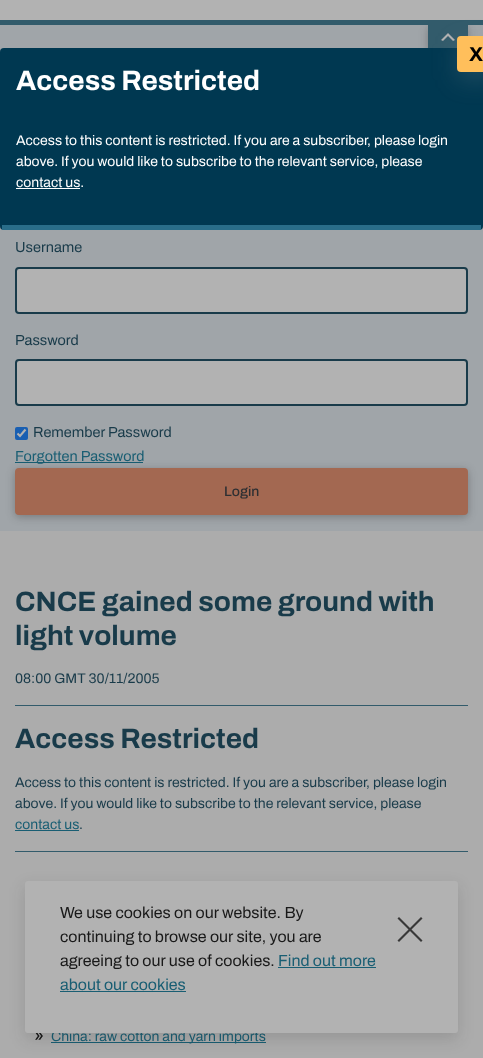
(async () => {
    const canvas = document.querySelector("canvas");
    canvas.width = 483;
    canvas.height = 1058;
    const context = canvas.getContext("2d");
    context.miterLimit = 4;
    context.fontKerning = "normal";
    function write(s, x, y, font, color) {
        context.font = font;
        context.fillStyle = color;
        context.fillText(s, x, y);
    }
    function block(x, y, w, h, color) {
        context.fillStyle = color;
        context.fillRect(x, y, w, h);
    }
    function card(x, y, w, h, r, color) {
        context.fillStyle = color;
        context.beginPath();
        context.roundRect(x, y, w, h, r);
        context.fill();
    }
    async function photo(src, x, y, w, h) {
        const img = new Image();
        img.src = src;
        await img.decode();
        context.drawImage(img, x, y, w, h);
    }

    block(0, 0, 483, 1058, "rgb(172, 172, 172)");
    block(0, 25, 483, 506, "rgb(160, 165, 169)");
    context.fillStyle = "rgba(25, 25, 25, 0.3)";
    context.filter = "blur(4px)";
    context.beginPath();
    context.roundRect(428, 27, 40, 26, 4);
    context.fill();
    context.filter = "none";
    block(428, 27, 38, 21, "rgb(50, 91, 107)");
    context.beginPath();
    context.roundRect(429, 26, 38, 24, [0, 0, 3, 3]);
    context.strokeStyle = "rgb(50, 91, 107)";
    context.lineWidth = 2;
    context.stroke();
    card(0, 48, 483, 182, 4, "rgb(0, 56, 81)");
    block(2, 225, 479, 5, "rgb(41, 109, 137)");
    block(0, 0, 483, 20, "rgb(178, 178, 178)");
    block(0, 20, 483, 5, "rgb(50, 91, 107)");
    await photo("media/1.png", 441, 33, 14, 8);
    context.fillStyle = "rgba(149, 157, 165, 0.2)";
    context.filter = "blur(12px)";
    context.beginPath();
    context.roundRect(457, 44, 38, 36, 4);
    context.fill();
    context.filter = "none";
    context.fillStyle = "rgb(255, 191, 91)";
    context.beginPath();
    context.roundRect(457, 36, 26, 36, [4, 0, 0, 4]);
    context.fill();
    write("X", 469, 61, "bold 20px Archivo", "rgb(0, 0, 0)");
    write("Access Restricted", 16, 90, "bold 28px Archivo", "rgb(255, 255, 255)");
    write("Access to this content is restricted. If you are a subscriber, please login", 16, 145, "14px Archivo", "rgb(255, 255, 255)");
    write("above. If you would like to subscribe to the relevant service, please", 16, 166, "14px Archivo", "rgb(255, 255, 255)");
    write("contact us.", 16, 187, "14px Archivo", "rgb(255, 255, 255)");
    block(16, 188, 64, 1, "rgb(255, 255, 255)");
    write("Username", 15, 252, "14.5px Archivo", "rgb(25, 59, 74)");
    context.fillStyle = "rgb(178, 178, 178)";
    context.beginPath();
    context.roundRect(16, 268, 451, 45, 3);
    context.fill();
    context.strokeStyle = "rgb(25, 59, 74)";
    context.stroke();
    write("Password", 15, 345, "14.5px Archivo", "rgb(25, 59, 74)");
    context.fillStyle = "rgb(178, 178, 178)";
    context.beginPath();
    context.roundRect(16, 360, 451, 45, 3);
    context.fill();
    context.stroke();
    card(15, 427, 13, 13, 2, "rgb(25, 95, 178)");
    context.beginPath();
    context.moveTo(17.5, 433.5);
    context.lineTo(20, 436);
    context.lineTo(25.5, 429.5);
    context.strokeStyle = "rgb(178, 178, 178)";
    context.lineWidth = 2.1;
    context.stroke();
    write("Remember Password", 33, 437, "14.5px Archivo", "rgb(25, 59, 74)");
    block(15, 462, 128, 1, "rgb(25, 94, 115)");
    write("Forgotten Password", 15, 461, "14.5px Archivo", "rgb(25, 94, 115)");
    context.fillStyle = "rgba(25, 25, 25, 0.3)";
    context.filter = "blur(4px)";
    context.beginPath();
    context.roundRect(15, 470, 453, 47, 4);
    context.fill();
    context.filter = "none";
    context.fillStyle = "rgb(163, 104, 81)";
    context.beginPath();
    context.roundRect(16, 469, 451, 45, 3);
    context.fill();
    context.strokeStyle = "rgb(163, 104, 81)";
    context.lineWidth = 2;
    context.stroke();
    write("Login", 224, 496, "500 14px Archivo", "rgb(45, 47, 50)");
    write("CNCE gained some ground with", 15, 611, "bold 28px Archivo", "rgb(25, 59, 74)");
    write("light volume", 15, 645, "bold 28px Archivo", "rgb(25, 59, 74)");
    write("08:00 GMT 30/11/2005", 15, 683, "14px Archivo", "rgb(25, 59, 74)");
    block(15, 705, 453, 1, "rgb(50, 91, 107)");
    write("Access Restricted", 15, 748, "bold 28px Archivo", "rgb(25, 59, 74)");
    write("Access to this content is restricted. If you are a subscriber, please login", 15, 787, "14px Archivo", "rgb(25, 59, 74)");
    write("above. If you would like to subscribe to the relevant service, please", 15, 808, "14px Archivo", "rgb(25, 59, 74)");
    write("contact us", 15, 829, "14px Archivo", "rgb(25, 94, 115)");
    block(15, 830, 64, 1, "rgb(25, 94, 115)");
    write(".", 79, 829, "14px Archivo", "rgb(25, 59, 74)");
    block(15, 851, 453, 1, "rgb(50, 91, 107)");
    await photo("media/2.png", 35, 1033, 8, 7);
    block(51, 1042, 215, 1, "rgb(25, 94, 115)");
    write("China: raw cotton and yarn imports", 51, 1041, "14px Archivo", "rgb(25, 94, 115)");
    context.fillStyle = "rgba(25, 25, 25, 0.15)";
    context.filter = "blur(8px)";
    context.beginPath();
    context.roundRect(25, 887, 433, 152, 3);
    context.fill();
    context.filter = "none";
    card(25, 881, 433, 152, 3, "rgb(178, 178, 178)");
    write("We use cookies on our website. By", 60, 918, "16px Archivo", "rgb(25, 25, 25)");
    write("continuing to browse our site, you are", 60, 942, "16px Archivo", "rgb(25, 25, 25)");
    context.fillStyle = "rgb(56, 56, 56)";
    context.beginPath();
    context.moveTo(421, 917);
    context.lineTo(422.5, 918.5);
    context.lineTo(399, 942);
    context.lineTo(397.5, 940.5);
    context.closePath();
    context.fill();
    context.beginPath();
    context.moveTo(397.5, 918.5);
    context.lineTo(399, 917);
    context.lineTo(422.5, 940.5);
    context.lineTo(421, 942);
    context.closePath();
    context.fill();
    write("agreeing to our use of cookies.", 60, 966, "16px Archivo", "rgb(25, 25, 25)");
    write("Find out more", 278, 966, "16px Archivo", "rgb(25, 94, 115)");
    block(278, 967, 98, 1, "rgb(25, 94, 115)");
    write("about our cookies", 60, 990, "16px Archivo", "rgb(25, 94, 115)");
    block(60, 991, 126, 1, "rgb(25, 94, 115)");
})();
